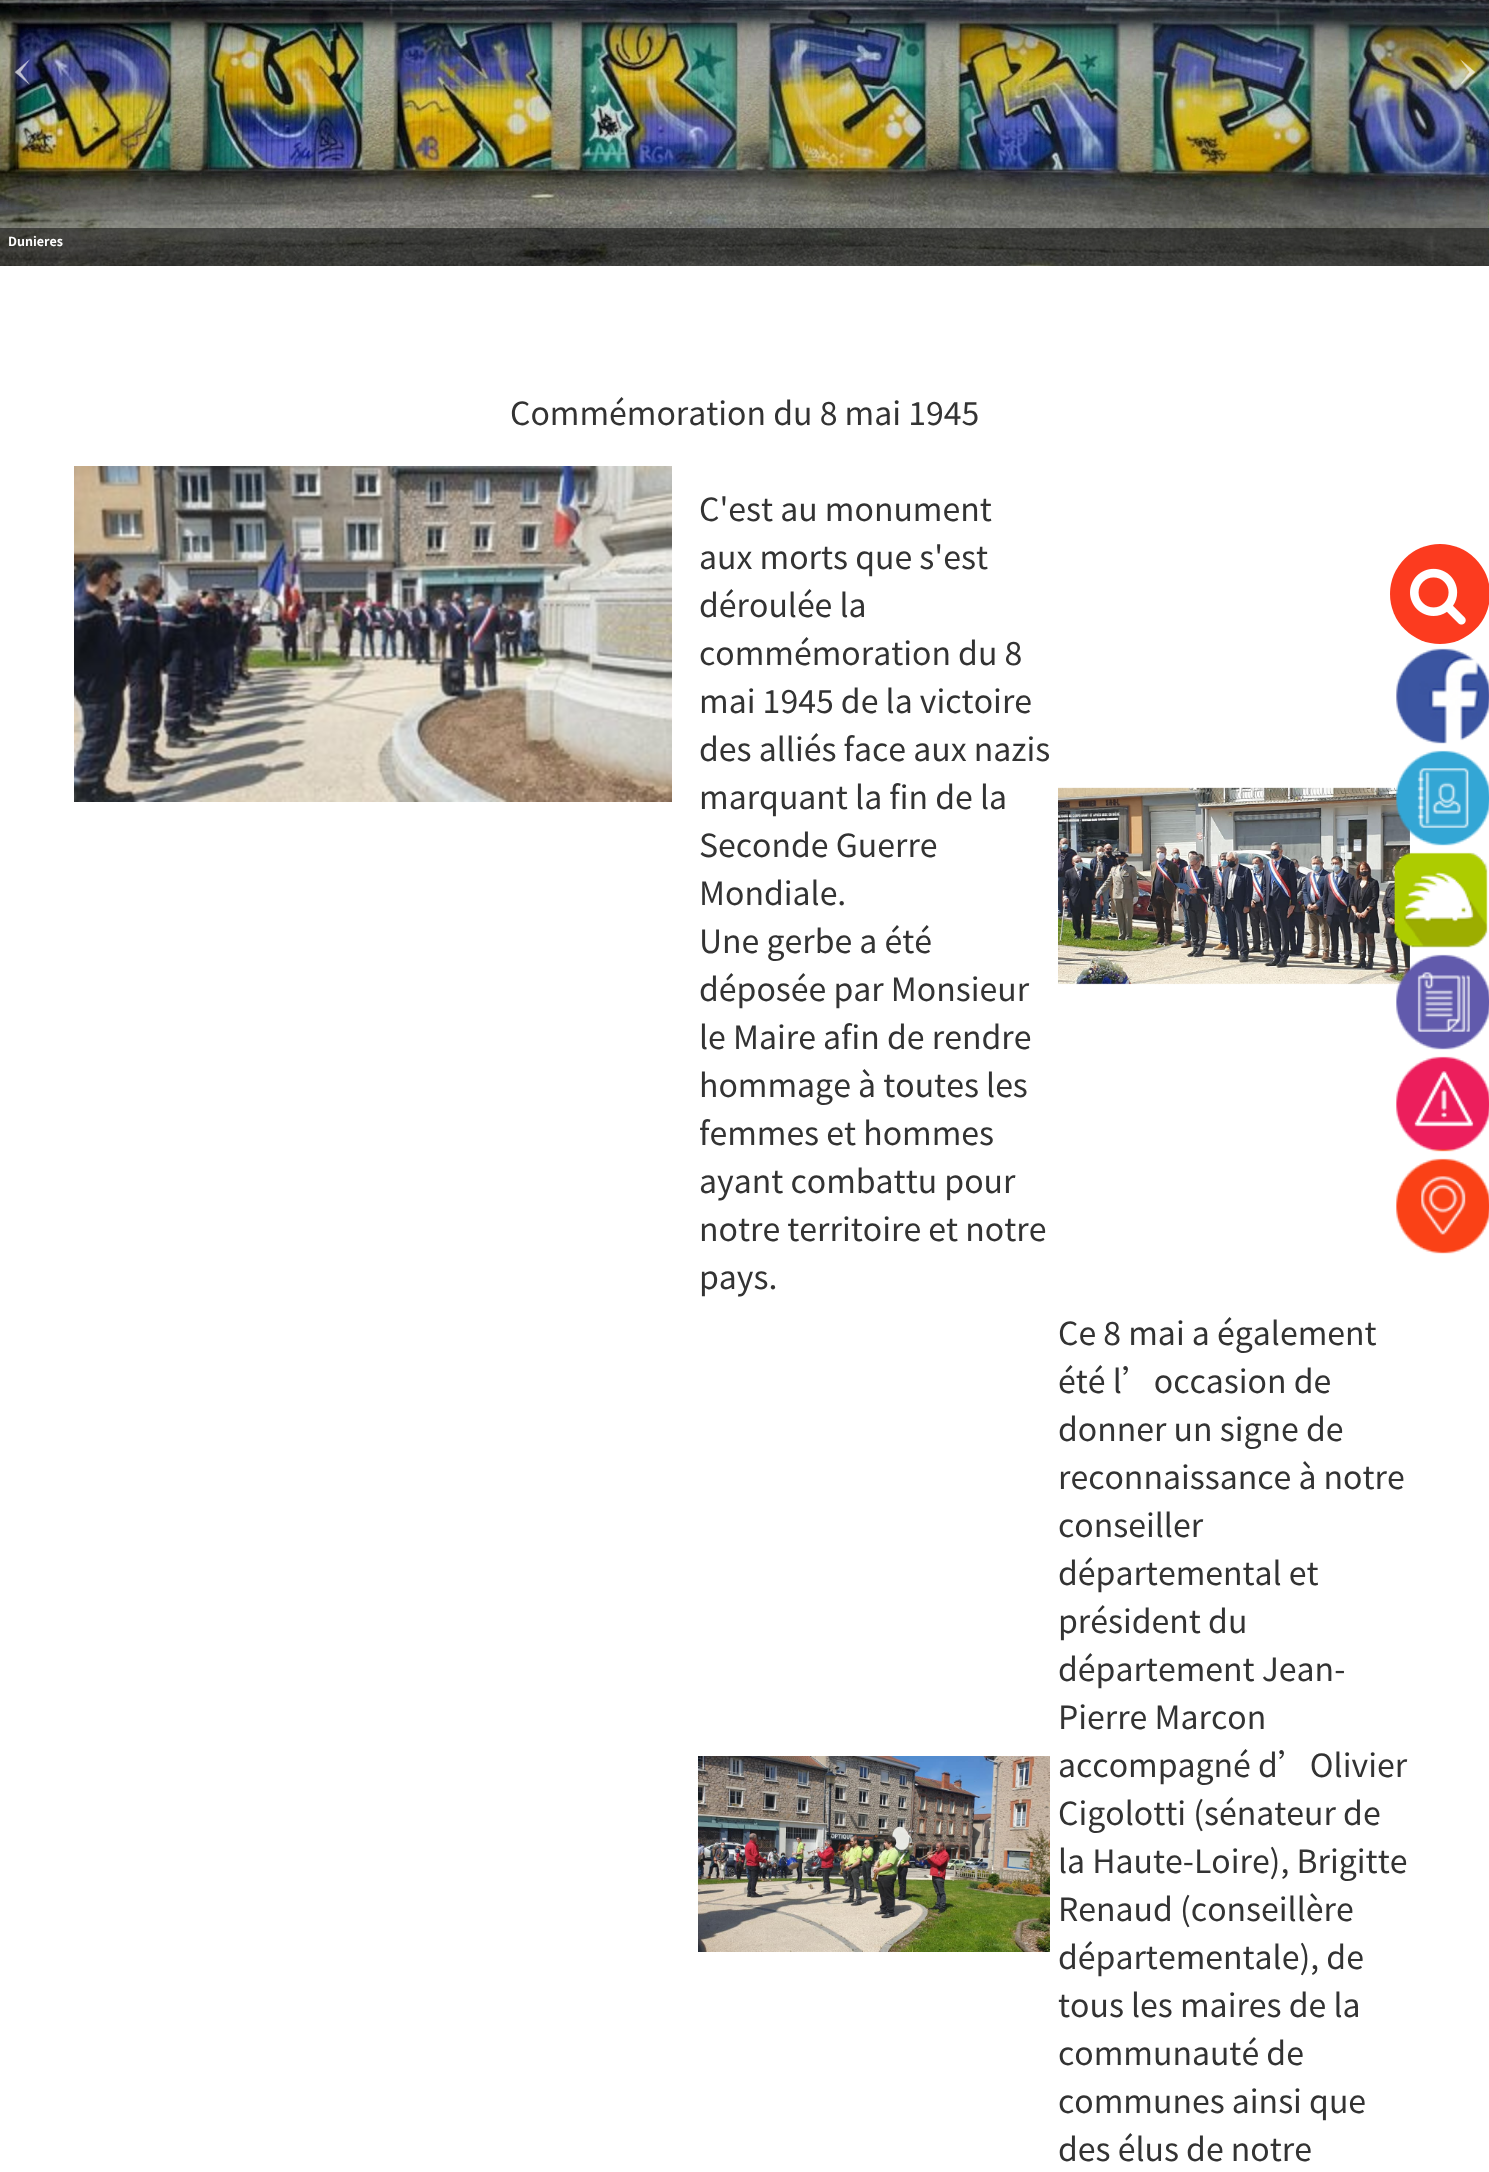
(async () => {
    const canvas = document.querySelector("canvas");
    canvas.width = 1489;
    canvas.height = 2172;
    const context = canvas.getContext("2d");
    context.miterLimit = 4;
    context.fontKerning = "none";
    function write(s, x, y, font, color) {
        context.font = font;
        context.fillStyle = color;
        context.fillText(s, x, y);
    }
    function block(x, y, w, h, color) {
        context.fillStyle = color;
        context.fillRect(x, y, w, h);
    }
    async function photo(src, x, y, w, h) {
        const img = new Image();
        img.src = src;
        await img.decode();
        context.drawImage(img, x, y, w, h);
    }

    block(0, 0, 1489, 2172, "rgb(255, 255, 255)");
    await photo("media/3.png", 0, 0, 1489, 266);
    await photo("media/1.png", 14, 59, 17, 26);
    await photo("media/2.png", 1460, 59, 16, 26);
    block(0, 228, 1489, 38, "rgba(0, 0, 0, 0.5)");
    write("Dunieres", 8, 246, "bold 12.5px Noto Sans HK", "rgb(255, 255, 255)");
    write("Commémoration du 8 mai 1945", 510, 425, "32px Noto Sans HK", "rgb(51, 51, 51)");
    await photo("media/4.png", 74, 466, 598, 336);
    write("C'est au monument", 699, 521, "32px Noto Sans HK", "rgb(51, 51, 51)");
    write("aux morts que s'est", 699, 569, "32px Noto Sans HK", "rgb(51, 51, 51)");
    write("déroulée la", 699, 617, "32px Noto Sans HK", "rgb(51, 51, 51)");
    write("commémoration du 8", 699, 665, "32px Noto Sans HK", "rgb(51, 51, 51)");
    write("mai 1945 de la victoire", 699, 713, "32px Noto Sans HK", "rgb(51, 51, 51)");
    write("des alliés face aux nazis", 699, 761, "32px Noto Sans HK", "rgb(51, 51, 51)");
    write("marquant la fin de la", 699, 809, "32px Noto Sans HK", "rgb(51, 51, 51)");
    write("Seconde Guerre", 699, 857, "32px Noto Sans HK", "rgb(51, 51, 51)");
    write("Mondiale.", 699, 905, "32px Noto Sans HK", "rgb(51, 51, 51)");
    write("Une gerbe a été", 699, 953, "32px Noto Sans HK", "rgb(51, 51, 51)");
    write("déposée par Monsieur", 699, 1001, "32px Noto Sans HK", "rgb(51, 51, 51)");
    write("le Maire afin de rendre", 699, 1049, "32px Noto Sans HK", "rgb(51, 51, 51)");
    write("hommage à toutes les", 699, 1097, "32px Noto Sans HK", "rgb(51, 51, 51)");
    write("femmes et hommes", 699, 1145, "32px Noto Sans HK", "rgb(51, 51, 51)");
    write("ayant combattu pour", 699, 1193, "32px Noto Sans HK", "rgb(51, 51, 51)");
    write("notre territoire et notre", 699, 1241, "32px Noto Sans HK", "rgb(51, 51, 51)");
    write("pays.", 699, 1289, "32px Noto Sans HK", "rgb(51, 51, 51)");
    await photo("media/5.png", 1058, 787, 352, 198);
    await photo("media/6.png", 698, 1756, 352, 196);
    write("Ce 8 mai a également", 1058, 1345, "32px Noto Sans HK", "rgb(51, 51, 51)");
    write("été l’occasion de", 1058, 1393, "32px Noto Sans HK", "rgb(51, 51, 51)");
    write("donner un signe de", 1058, 1441, "32px Noto Sans HK", "rgb(51, 51, 51)");
    write("reconnaissance à notre", 1058, 1489, "32px Noto Sans HK", "rgb(51, 51, 51)");
    write("conseiller", 1058, 1537, "32px Noto Sans HK", "rgb(51, 51, 51)");
    write("départemental et", 1058, 1585, "32px Noto Sans HK", "rgb(51, 51, 51)");
    write("président du", 1058, 1633, "32px Noto Sans HK", "rgb(51, 51, 51)");
    write("département Jean-", 1058, 1681, "32px Noto Sans HK", "rgb(51, 51, 51)");
    write("Pierre Marcon", 1058, 1729, "32px Noto Sans HK", "rgb(51, 51, 51)");
    write("accompagné d’Olivier", 1058, 1777, "32px Noto Sans HK", "rgb(51, 51, 51)");
    write("Cigolotti (sénateur de", 1058, 1825, "32px Noto Sans HK", "rgb(51, 51, 51)");
    write("la Haute-Loire), Brigitte", 1058, 1873, "32px Noto Sans HK", "rgb(51, 51, 51)");
    write("Renaud (conseillère", 1058, 1921, "32px Noto Sans HK", "rgb(51, 51, 51)");
    write("départementale), de", 1058, 1969, "32px Noto Sans HK", "rgb(51, 51, 51)");
    write("tous les maires de la", 1058, 2017, "32px Noto Sans HK", "rgb(51, 51, 51)");
    write("communauté de", 1058, 2065, "32px Noto Sans HK", "rgb(51, 51, 51)");
    write("communes ainsi que", 1058, 2113, "32px Noto Sans HK", "rgb(51, 51, 51)");
    write("des élus de notre", 1058, 2161, "32px Noto Sans HK", "rgb(51, 51, 51)");
    context.fillStyle = "rgb(252, 59, 31)";
    context.beginPath();
    context.arc(1440, 594, 50, 0, Math.PI * 2);
    context.fill();
    await photo("media/7.png", 1410, 568, 56, 57);
    await photo("media/8.png", 1396, 648, 93, 96);
    await photo("media/9.png", 1396, 750, 93, 96);
    await photo("media/10.png", 1394, 852, 94, 96);
    await photo("media/11.png", 1396, 954, 93, 96);
    await photo("media/12.png", 1396, 1056, 93, 96);
    await photo("media/13.png", 1396, 1158, 93, 96);
})();
